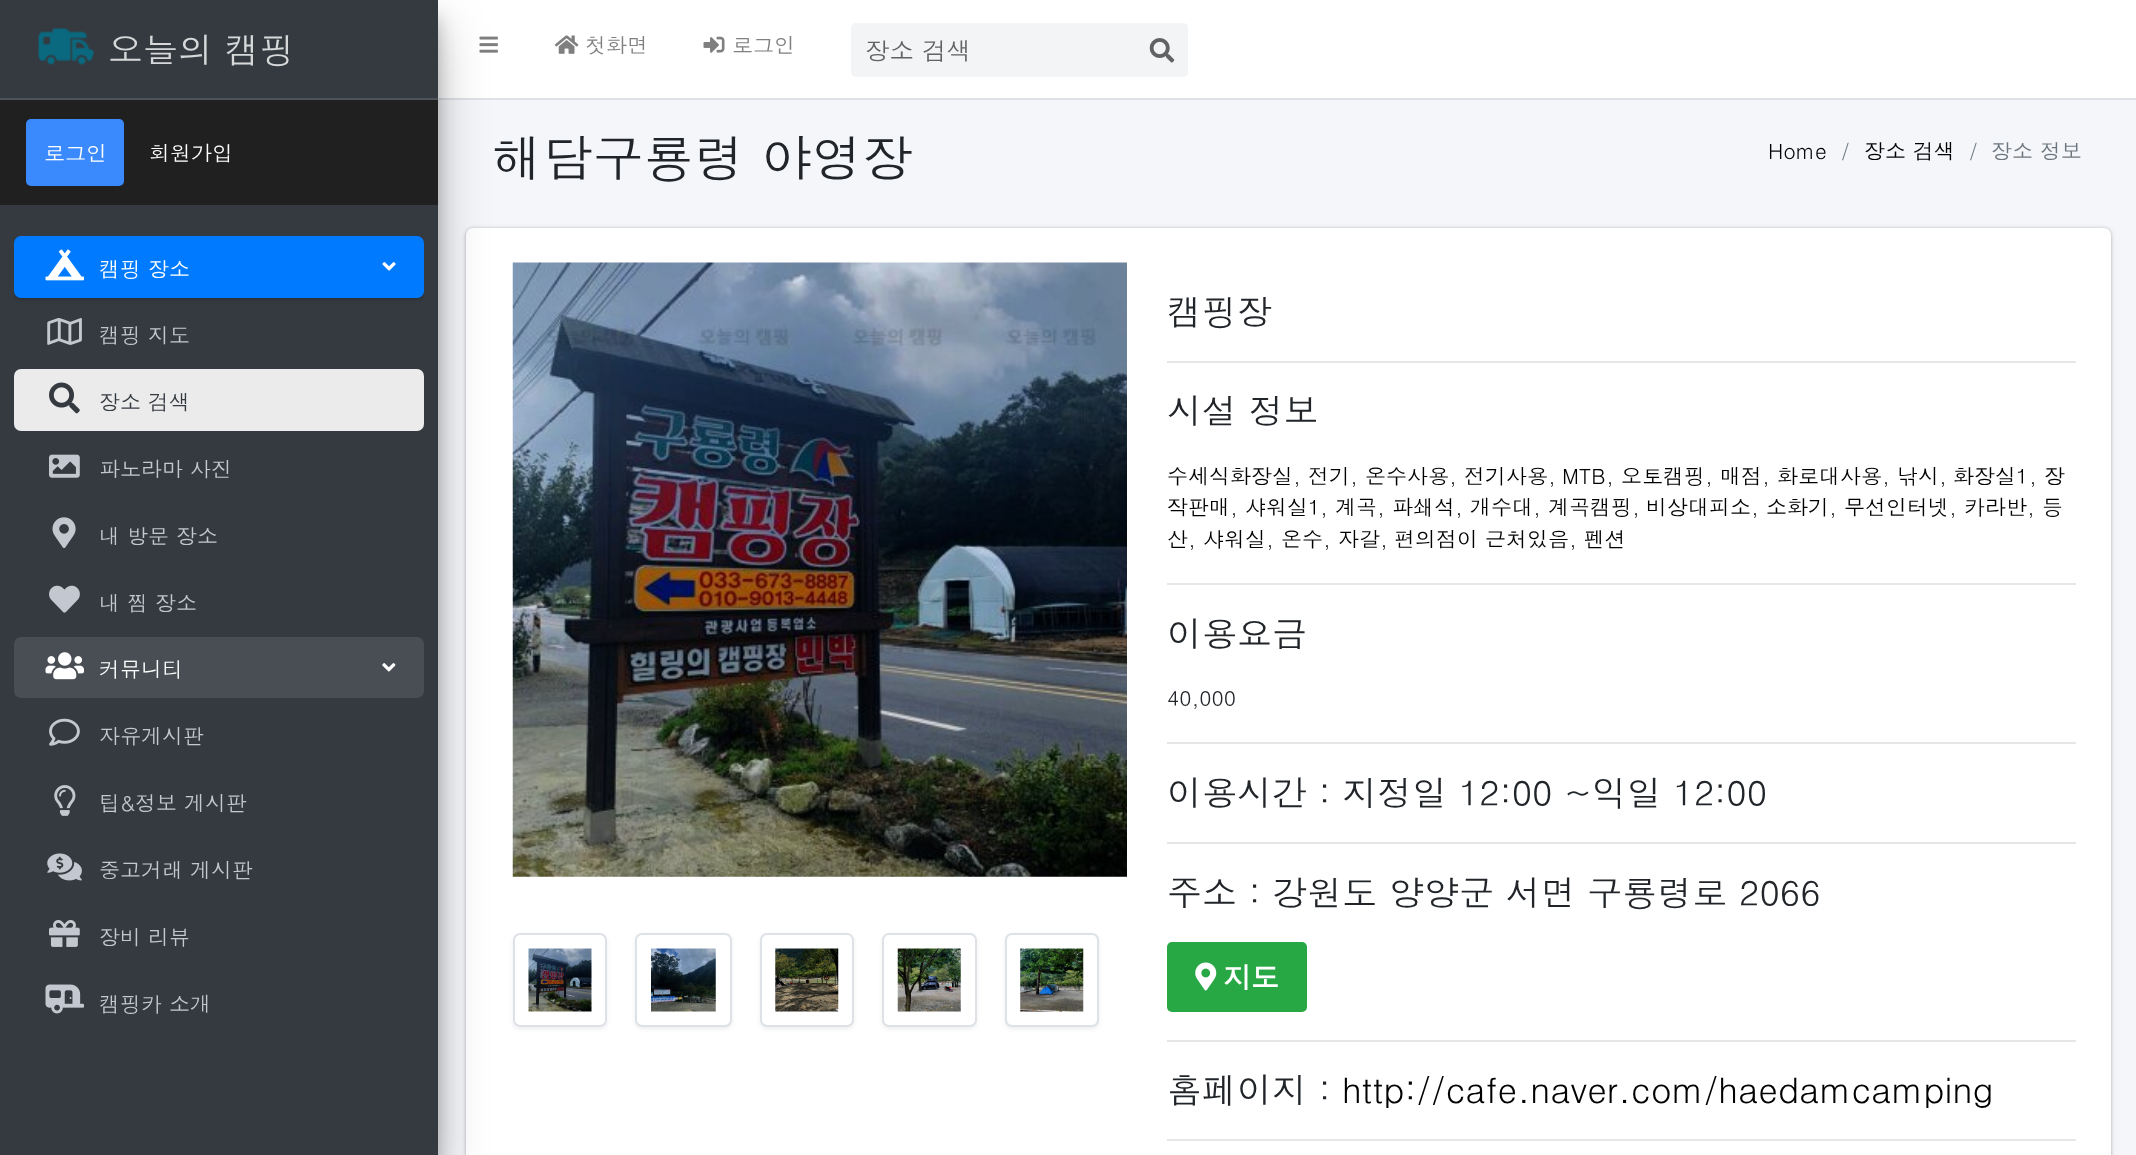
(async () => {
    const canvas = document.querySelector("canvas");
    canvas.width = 2136;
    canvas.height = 1155;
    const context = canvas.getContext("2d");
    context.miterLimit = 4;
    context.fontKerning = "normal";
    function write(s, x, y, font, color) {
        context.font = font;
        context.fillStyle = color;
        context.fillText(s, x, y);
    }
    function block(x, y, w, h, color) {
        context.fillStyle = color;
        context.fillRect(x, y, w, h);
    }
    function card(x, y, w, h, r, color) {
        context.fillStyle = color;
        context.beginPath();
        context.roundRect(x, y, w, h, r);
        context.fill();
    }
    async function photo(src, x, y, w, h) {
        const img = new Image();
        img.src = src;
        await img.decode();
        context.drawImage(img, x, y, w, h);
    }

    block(0, 0, 2136, 1155, "rgb(244, 246, 249)");
    block(438, 0, 1698, 98, "rgb(255, 255, 255)");
    block(438, 98, 1698, 2, "rgb(222, 226, 230)");
    context.fillStyle = "rgba(0, 0, 0, 0.22)";
    context.filter = "blur(9px)";
    context.beginPath();
    context.rect(0, 18, 438, 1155);
    context.fill();
    context.filter = "none";
    await photo("media/16.png", 479, 36, 19, 17);
    context.fillStyle = "rgba(0, 0, 0, 0.2)";
    context.filter = "blur(2.5px)";
    context.beginPath();
    context.roundRect(466, 229, 1645, 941, 7);
    context.fill();
    context.filter = "none";
    context.fillStyle = "rgba(0, 0, 0, 0.12)";
    context.filter = "blur(1px)";
    context.beginPath();
    context.roundRect(466, 228, 1645, 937, 7);
    context.fill();
    context.filter = "none";
    card(466, 228, 1645, 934, 7, "rgb(255, 255, 255)");
    await photo("media/20.png", 512, 262, 615, 615);
    context.fillStyle = "rgba(0, 0, 0, 0.25)";
    context.filter = "blur(24.5px)";
    context.beginPath();
    context.rect(0, 25, 438, 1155);
    context.fill();
    context.filter = "none";
    block(0, 0, 438, 1155, "rgb(52, 58, 64)");
    block(0, 98, 438, 2, "rgb(75, 84, 92)");
    await photo("media/1.png", 37, 28, 57, 37);
    write("오늘의 캠핑", 108, 63, "35px Dotum", "rgb(214, 216, 217)");
    block(0, 100, 438, 105, "rgb(33, 32, 32)");
    card(26, 119, 98, 67, 5, "rgb(58, 138, 253)");
    write("로그인", 44, 161, "21px Dotum", "rgb(255, 255, 255)");
    write("회원가입", 149, 161, "21px Dotum", "rgb(255, 255, 255)");
    context.save();
    context.beginPath();
    context.rect(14, 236, 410, 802);
    context.clip();
    context.fillStyle = "rgba(0, 0, 0, 0.24)";
    context.filter = "blur(2px)";
    context.beginPath();
    context.roundRect(14, 238, 410, 61, 7);
    context.fill();
    context.filter = "none";
    context.restore();
    card(14, 236, 410, 62, 7, "rgb(0, 123, 255)");
    await photo("media/2.png", 45, 249, 39, 32);
    write("캠핑 장소", 99, 277, "21px Dotum", "rgb(255, 255, 255)");
    await photo("media/3.png", 382, 262, 14, 9);
    await photo("media/4.png", 47, 318, 35, 27);
    write("캠핑 지도", 99, 343, "21px Dotum", "rgb(194, 199, 208)");
    card(14, 369, 410, 62, 7, "rgb(235, 235, 236)");
    await photo("media/5.png", 49, 382, 31, 32);
    write("장소 검색", 99, 410, "21px Dotum", "rgb(52, 58, 64)");
    await photo("media/6.png", 49, 454, 31, 24);
    write("파노라마 사진", 99, 477, "21px Dotum", "rgb(194, 199, 208)");
    await photo("media/7.png", 52, 517, 24, 31);
    write("내 방문 장소", 99, 544, "21px Dotum", "rgb(194, 199, 208)");
    await photo("media/8.png", 49, 585, 31, 28);
    write("내 찜 장소", 99, 611, "21px Dotum", "rgb(194, 199, 208)");
    card(14, 637, 410, 61, 7, "rgb(72, 78, 83)");
    await photo("media/9.png", 45, 652, 39, 28);
    write("커뮤니티", 99, 677, "21px Dotum", "rgb(255, 255, 255)");
    await photo("media/10.png", 382, 663, 14, 9);
    await photo("media/11.png", 49, 718, 31, 28);
    write("자유게시판", 99, 744, "21px Dotum", "rgb(194, 199, 208)");
    await photo("media/12.png", 54, 785, 22, 31);
    write("팁&정보 게시판", 99, 811, "21px Dotum", "rgb(194, 199, 208)");
    await photo("media/13.png", 47, 853, 35, 28);
    write("중고거래 게시판", 99, 878, "21px Dotum", "rgb(194, 199, 208)");
    await photo("media/14.png", 49, 920, 31, 27);
    write("장비 리뷰", 99, 945, "21px Dotum", "rgb(194, 199, 208)");
    await photo("media/15.png", 45, 984, 39, 30);
    write("캠핑카 소개", 99, 1012, "21px Dotum", "rgb(194, 199, 208)");
    await photo("media/17.png", 554, 35, 25, 19);
    write("첫화면", 585, 53, "21px Dotum", "rgb(128, 128, 128)");
    await photo("media/18.png", 703, 36, 22, 17);
    write("로그인", 732, 53, "21px Dotum", "rgb(128, 128, 128)");
    context.fillStyle = "rgb(242, 244, 246)";
    context.beginPath();
    context.roundRect(851, 23, 285, 54, [5, 0, 0, 5]);
    context.fill();
    write("장소 검색", 865, 60, "24.5px Dotum", "rgb(97, 98, 98)");
    context.fillStyle = "rgb(242, 244, 246)";
    context.beginPath();
    context.roundRect(1136, 23, 52, 54, [0, 5, 5, 0]);
    context.fill();
    await photo("media/19.png", 1149, 38, 26, 25);
    write("해담구룡령 야영장", 492, 177, "50.5px Dotum", "rgb(33, 37, 41)");
    write("Home", 1768, 159, "21px Dotum", "rgb(0, 0, 0)");
    write("/", 1841, 159, "21px Dotum", "rgb(108, 117, 125)");
    write("장소 검색", 1864, 159, "21px Dotum", "rgb(0, 0, 0)");
    write("/", 1969, 159, "21px Dotum", "rgb(108, 117, 125)");
    write("장소 정보", 1991, 159, "21px Dotum", "rgb(108, 117, 125)");
    context.save();
    context.beginPath();
    context.moveTo(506, 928);
    context.lineTo(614, 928);
    context.lineTo(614, 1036);
    context.lineTo(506, 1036);
    context.closePath();
    context.moveTo(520, 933);
    context.lineTo(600, 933);
    context.bezierCurveTo(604, 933, 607, 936, 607, 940);
    context.lineTo(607, 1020);
    context.bezierCurveTo(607, 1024, 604, 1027, 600, 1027);
    context.lineTo(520, 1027);
    context.bezierCurveTo(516, 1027, 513, 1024, 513, 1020);
    context.lineTo(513, 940);
    context.bezierCurveTo(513, 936, 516, 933, 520, 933);
    context.closePath();
    context.clip("evenodd");
    context.fillStyle = "rgba(0, 0, 0, 0.07)";
    context.filter = "blur(2px)";
    context.beginPath();
    context.roundRect(513, 935, 94, 94, 7);
    context.fill();
    context.filter = "none";
    context.restore();
    context.beginPath();
    context.roundRect(514, 934, 92, 92, 6);
    context.strokeStyle = "rgb(222, 226, 230)";
    context.lineWidth = 2;
    context.stroke();
    await photo("media/21.png", 528, 948, 64, 64);
    context.fillStyle = "rgba(0, 0, 0, 0.07)";
    context.filter = "blur(2px)";
    context.beginPath();
    context.roundRect(635, 935, 97, 94, 7);
    context.fill();
    context.filter = "none";
    context.fillStyle = "rgb(255, 255, 255)";
    context.beginPath();
    context.roundRect(636, 934, 95, 92, 6);
    context.fill();
    context.stroke();
    await photo("media/22.png", 651, 948, 65, 64);
    context.fillStyle = "rgba(0, 0, 0, 0.07)";
    context.filter = "blur(2px)";
    context.beginPath();
    context.roundRect(760, 935, 94, 94, 7);
    context.fill();
    context.filter = "none";
    context.fillStyle = "rgb(255, 255, 255)";
    context.beginPath();
    context.roundRect(761, 934, 92, 92, 6);
    context.fill();
    context.stroke();
    await photo("media/23.png", 775, 948, 64, 64);
    context.fillStyle = "rgba(0, 0, 0, 0.07)";
    context.filter = "blur(2px)";
    context.beginPath();
    context.roundRect(882, 935, 95, 94, 7);
    context.fill();
    context.filter = "none";
    context.fillStyle = "rgb(255, 255, 255)";
    context.beginPath();
    context.roundRect(883, 934, 93, 92, 6);
    context.fill();
    context.stroke();
    await photo("media/24.png", 897, 948, 64, 64);
    context.fillStyle = "rgba(0, 0, 0, 0.07)";
    context.filter = "blur(2px)";
    context.beginPath();
    context.roundRect(1005, 935, 94, 94, 7);
    context.fill();
    context.filter = "none";
    context.fillStyle = "rgb(255, 255, 255)";
    context.beginPath();
    context.roundRect(1006, 934, 92, 92, 6);
    context.fill();
    context.stroke();
    await photo("media/25.png", 1020, 948, 64, 64);
    write("캠핑장", 1167, 325, "35px Dotum", "rgb(33, 37, 41)");
    block(1167, 361, 909, 2, "rgb(230, 230, 230)");
    write("시설 정보", 1167, 424, "35px Dotum", "rgb(33, 37, 41)");
    write("수세식화장실", 1167, 484, "21px Dotum", "rgb(0, 0, 0)");
    write("전기", 1308, 484, "21px Dotum", "rgb(0, 0, 0)");
    write("온수사용", 1365, 484, "21px Dotum", "rgb(0, 0, 0)");
    write("전기사용", 1464, 484, "21px Dotum", "rgb(0, 0, 0)");
    write("MTB", 1562, 484, "21px Dotum", "rgb(0, 0, 0)");
    write("오토캠핑", 1621, 484, "21px Dotum", "rgb(0, 0, 0)");
    write("매점", 1720, 484, "21px Dotum", "rgb(0, 0, 0)");
    write("화로대사용", 1777, 484, "21px Dotum", "rgb(0, 0, 0)");
    write("낚시", 1897, 484, "21px Dotum", "rgb(0, 0, 0)");
    write("화장실1", 1953, 484, "21px Dotum", "rgb(0, 0, 0)");
    write("장", 2044, 484, "21px Dotum", "rgb(0, 0, 0)");
    write(",", 1293, 484, "21px Dotum", "rgb(33, 37, 41)");
    write(",", 1350, 484, "21px Dotum", "rgb(33, 37, 41)");
    write(",", 1449, 484, "21px Dotum", "rgb(33, 37, 41)");
    write(",", 1548, 484, "21px Dotum", "rgb(33, 37, 41)");
    write(",", 1606, 484, "21px Dotum", "rgb(33, 37, 41)");
    write(",", 1705, 484, "21px Dotum", "rgb(33, 37, 41)");
    write(",", 1762, 484, "21px Dotum", "rgb(33, 37, 41)");
    write(",", 1882, 484, "21px Dotum", "rgb(33, 37, 41)");
    write(",", 1939, 484, "21px Dotum", "rgb(33, 37, 41)");
    write(",", 2029, 484, "21px Dotum", "rgb(33, 37, 41)");
    write("작판매", 1167, 515, "21px Dotum", "rgb(0, 0, 0)");
    write(",", 1230, 515, "21px Dotum", "rgb(33, 37, 41)");
    write("샤워실1", 1245, 515, "21px Dotum", "rgb(0, 0, 0)");
    write(",", 1320, 515, "21px Dotum", "rgb(33, 37, 41)");
    write("계곡", 1335, 515, "21px Dotum", "rgb(0, 0, 0)");
    write(",", 1377, 515, "21px Dotum", "rgb(33, 37, 41)");
    write("파쇄석", 1392, 515, "21px Dotum", "rgb(0, 0, 0)");
    write(",", 1455, 515, "21px Dotum", "rgb(33, 37, 41)");
    write("개수대", 1470, 515, "21px Dotum", "rgb(0, 0, 0)");
    write(",", 1533, 515, "21px Dotum", "rgb(33, 37, 41)");
    write("계곡캠핑", 1548, 515, "21px Dotum", "rgb(0, 0, 0)");
    write(",", 1632, 515, "21px Dotum", "rgb(33, 37, 41)");
    write("비상대피소", 1646, 515, "21px Dotum", "rgb(0, 0, 0)");
    write(",", 1751, 515, "21px Dotum", "rgb(33, 37, 41)");
    write("소화기", 1766, 515, "21px Dotum", "rgb(0, 0, 0)");
    write(",", 1829, 515, "21px Dotum", "rgb(33, 37, 41)");
    write("무선인터넷", 1844, 515, "21px Dotum", "rgb(0, 0, 0)");
    write(",", 1949, 515, "21px Dotum", "rgb(33, 37, 41)");
    write("카라반", 1964, 515, "21px Dotum", "rgb(0, 0, 0)");
    write(",", 2027, 515, "21px Dotum", "rgb(33, 37, 41)");
    write("등", 2042, 515, "21px Dotum", "rgb(0, 0, 0)");
    write("산", 1167, 547, "21px Dotum", "rgb(0, 0, 0)");
    write(",", 1188, 547, "21px Dotum", "rgb(33, 37, 41)");
    write("샤워실", 1203, 547, "21px Dotum", "rgb(0, 0, 0)");
    write(",", 1266, 547, "21px Dotum", "rgb(33, 37, 41)");
    write("온수", 1281, 547, "21px Dotum", "rgb(0, 0, 0)");
    write(",", 1323, 547, "21px Dotum", "rgb(33, 37, 41)");
    write("자갈", 1338, 547, "21px Dotum", "rgb(0, 0, 0)");
    write(",", 1380, 547, "21px Dotum", "rgb(33, 37, 41)");
    write("편의점이 근처있음", 1394, 547, "21px Dotum", "rgb(0, 0, 0)");
    write(",", 1569, 547, "21px Dotum", "rgb(33, 37, 41)");
    write("펜션", 1584, 547, "21px Dotum", "rgb(0, 0, 0)");
    block(1167, 583, 909, 2, "rgb(230, 230, 230)");
    write("이용요금", 1167, 647, "35px Dotum", "rgb(33, 37, 41)");
    write("40,000", 1167, 706, "21px Dotum", "rgb(33, 37, 41)");
    block(1167, 742, 909, 2, "rgb(230, 230, 230)");
    write("이용시간 : 지정일 12:00 ~익일 12:00", 1167, 806, "35px Dotum", "rgb(33, 37, 41)");
    block(1167, 842, 909, 2, "rgb(230, 230, 230)");
    write("주소 : 강원도 양양군 서면 구룡령로 2066", 1167, 906, "35px Dotum", "rgb(33, 37, 41)");
    card(1167, 942, 140, 70, 5, "rgb(40, 167, 69)");
    await photo("media/26.png", 1195, 962, 22, 29);
    write("지도", 1223, 986, "bold 28px WenQuanYi Zen Hei", "rgb(255, 255, 255)");
    block(1167, 1040, 909, 2, "rgb(230, 230, 230)");
    write("홈페이지 :", 1167, 1103, "35px Dotum", "rgb(33, 37, 41)");
    write("http://cafe.naver.com/haedamcamping", 1342, 1103, "35px Dotum", "rgb(0, 0, 0)");
    block(1167, 1139, 909, 2, "rgb(230, 230, 230)");
})();
